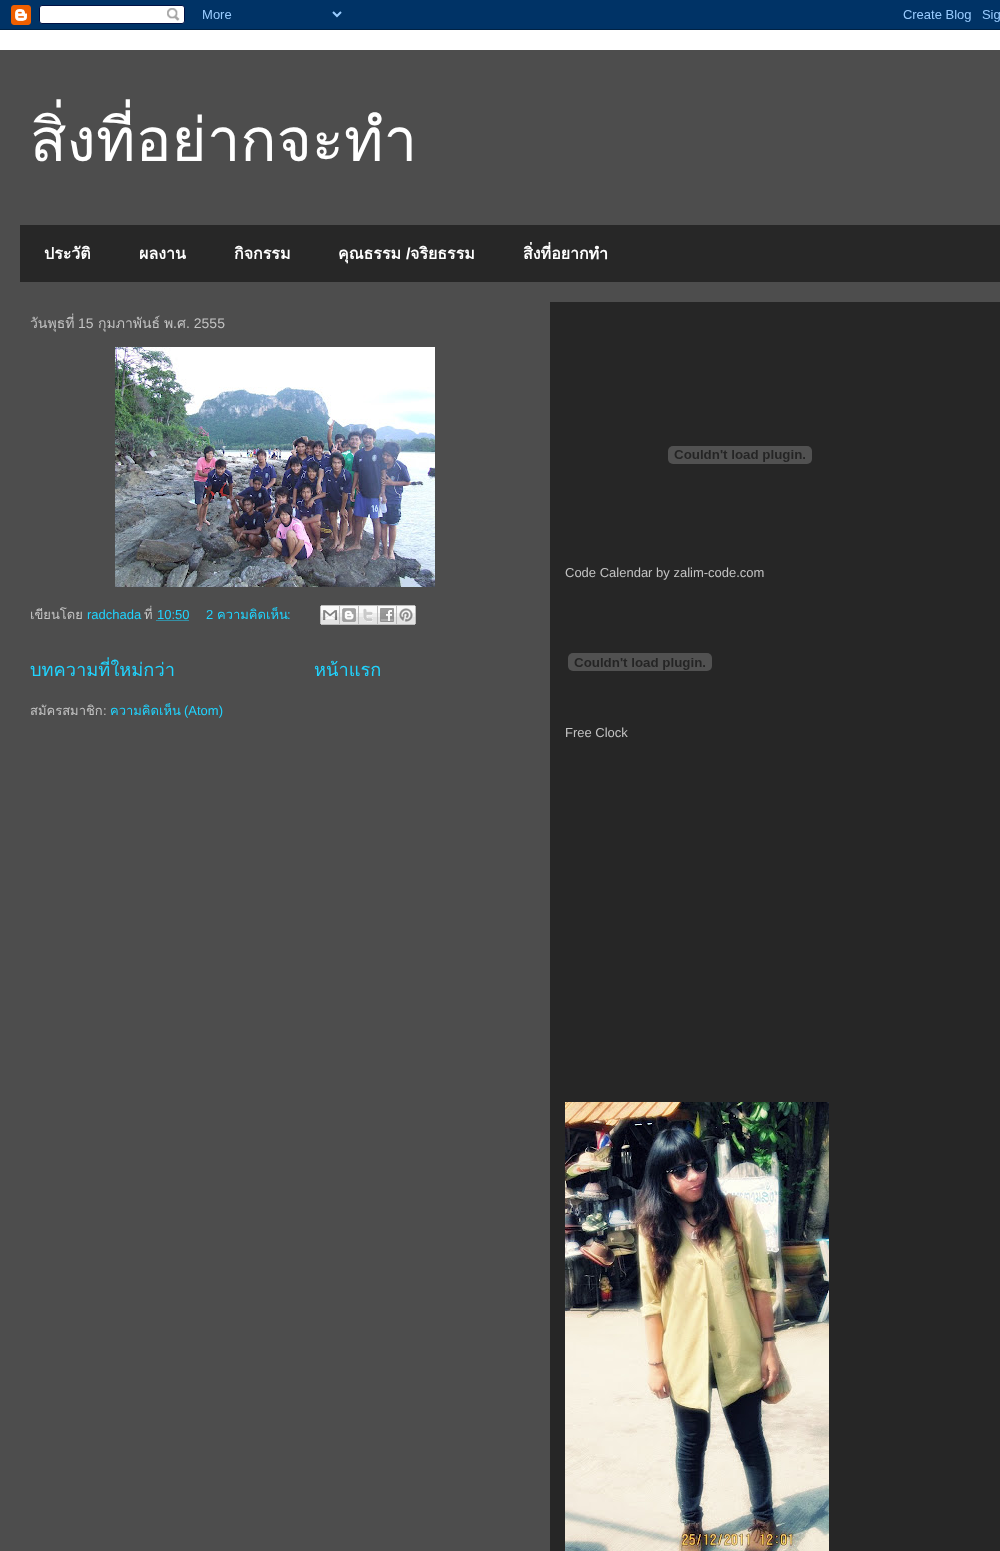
(async () => {
    const canvas = document.querySelector("canvas");
    canvas.width = 1000;
    canvas.height = 1551;
    const context = canvas.getContext("2d");
    context.miterLimit = 4;
    context.fontKerning = "normal";
    function write(s, x, y, font, color) {
        context.font = font;
        context.fillStyle = color;
        context.fillText(s, x, y);
    }
    function block(x, y, w, h, color) {
        context.fillStyle = color;
        context.fillRect(x, y, w, h);
    }
    async function photo(src, x, y, w, h) {
        const img = new Image();
        img.src = src;
        await img.decode();
        context.drawImage(img, x, y, w, h);
    }

    block(0, 0, 1000, 1551, "rgb(255, 255, 255)");
    await photo("media/1.png", 0, 0, 1000, 30);
    block(0, 50, 1000, 1501, "rgb(77, 77, 77)");
    context.save();
    context.beginPath();
    context.rect(20, 70, 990, 142);
    context.clip();
    write("สิ่งที่อย่ากจะทำ", 30, 161, "60px Loma", "rgb(255, 255, 255)");
    context.restore();
    block(20, 225, 980, 57, "rgb(39, 39, 39)");
    write("ประวัติ", 44, 259, "bold 16px Loma", "rgb(255, 255, 255)");
    write("ผลงาน", 139, 259, "bold 16px Loma", "rgb(255, 255, 255)");
    write("กิจกรรม", 234, 259, "bold 16px Loma", "rgb(255, 255, 255)");
    write("คุณธรรม", 338, 259, "bold 16px Loma", "rgb(255, 255, 255)");
    write("/", 406, 259, "bold 16px Liberation Sans", "rgb(255, 255, 255)");
    write("จริยธรรม", 410, 259, "bold 16px Loma", "rgb(255, 255, 255)");
    write("สิ่งที่อยากทำ", 523, 259, "bold 16px Loma", "rgb(255, 255, 255)");
    write("วันพุธที่", 30, 328, "14px Loma", "rgb(195, 195, 195)");
    write("15", 78, 328, "14px Liberation Sans", "rgb(195, 195, 195)");
    write("กุมภาพันธ์", 98, 328, "14px Loma", "rgb(195, 195, 195)");
    write("พ", 164, 328, "14px Loma", "rgb(195, 195, 195)");
    write(".", 173, 328, "14px Liberation Sans", "rgb(195, 195, 195)");
    write("ศ", 177, 328, "14px Loma", "rgb(195, 195, 195)");
    write(". 2555", 186, 328, "14px Liberation Sans", "rgb(195, 195, 195)");
    await photo("media/2.png", 115, 347, 320, 240);
    write("เขียนโดย", 30, 619, "13px Loma", "rgb(195, 195, 195)");
    write("radchada", 87, 619, "13px Liberation Sans", "rgb(32, 212, 255)");
    write("ที่", 144, 619, "13px Loma", "rgb(195, 195, 195)");
    write("10:50", 157, 619, "13px Liberation Sans", "rgb(32, 212, 255)");
    context.beginPath();
    context.moveTo(156.5, 620.5);
    context.lineTo(189, 620.5);
    context.strokeStyle = "rgb(32, 212, 255)";
    context.setLineDash([1, 1]);
    context.stroke();
    write("2", 206, 619, "13px Liberation Sans", "rgb(32, 212, 255)");
    write("ความคิดเห็น", 217, 619, "13px Loma", "rgb(32, 212, 255)");
    write(":", 287, 619, "13px Liberation Sans", "rgb(32, 212, 255)");
    await photo("media/3.png", 320, 605, 20, 20);
    await photo("media/4.png", 340, 605, 19, 20);
    await photo("media/5.png", 359, 605, 19, 20);
    await photo("media/6.png", 378, 605, 19, 20);
    await photo("media/7.png", 397, 605, 19, 20);
    write("บทความที่ใหม่กว่า", 30, 676, "18.25px Loma", "rgb(32, 212, 255)");
    write("หน้าแรก", 314, 676, "18.25px Loma", "rgb(32, 212, 255)");
    write("สมัครสมาชิก", 30, 715, "13px Loma", "rgb(195, 195, 195)");
    write(":", 103, 715, "13px Liberation Sans", "rgb(195, 195, 195)");
    write("ความคิดเห็น", 110, 715, "13px Loma", "rgb(32, 212, 255)");
    write("(Atom)", 184, 715, "13px Liberation Sans", "rgb(32, 212, 255)");
    block(550, 302, 450, 1249, "rgb(38, 38, 38)");
    await photo("media/8.png", 668, 446, 144, 18);
    write("Code Calendar by zalim-code.com", 565, 577, "13px Liberation Sans", "rgb(195, 195, 195)");
    await photo("media/9.png", 568, 653, 144, 18);
    write("Free Clock", 565, 737, "13px Liberation Sans", "rgb(195, 195, 195)");
    await photo("media/10.png", 565, 1102, 264, 449);
})();
